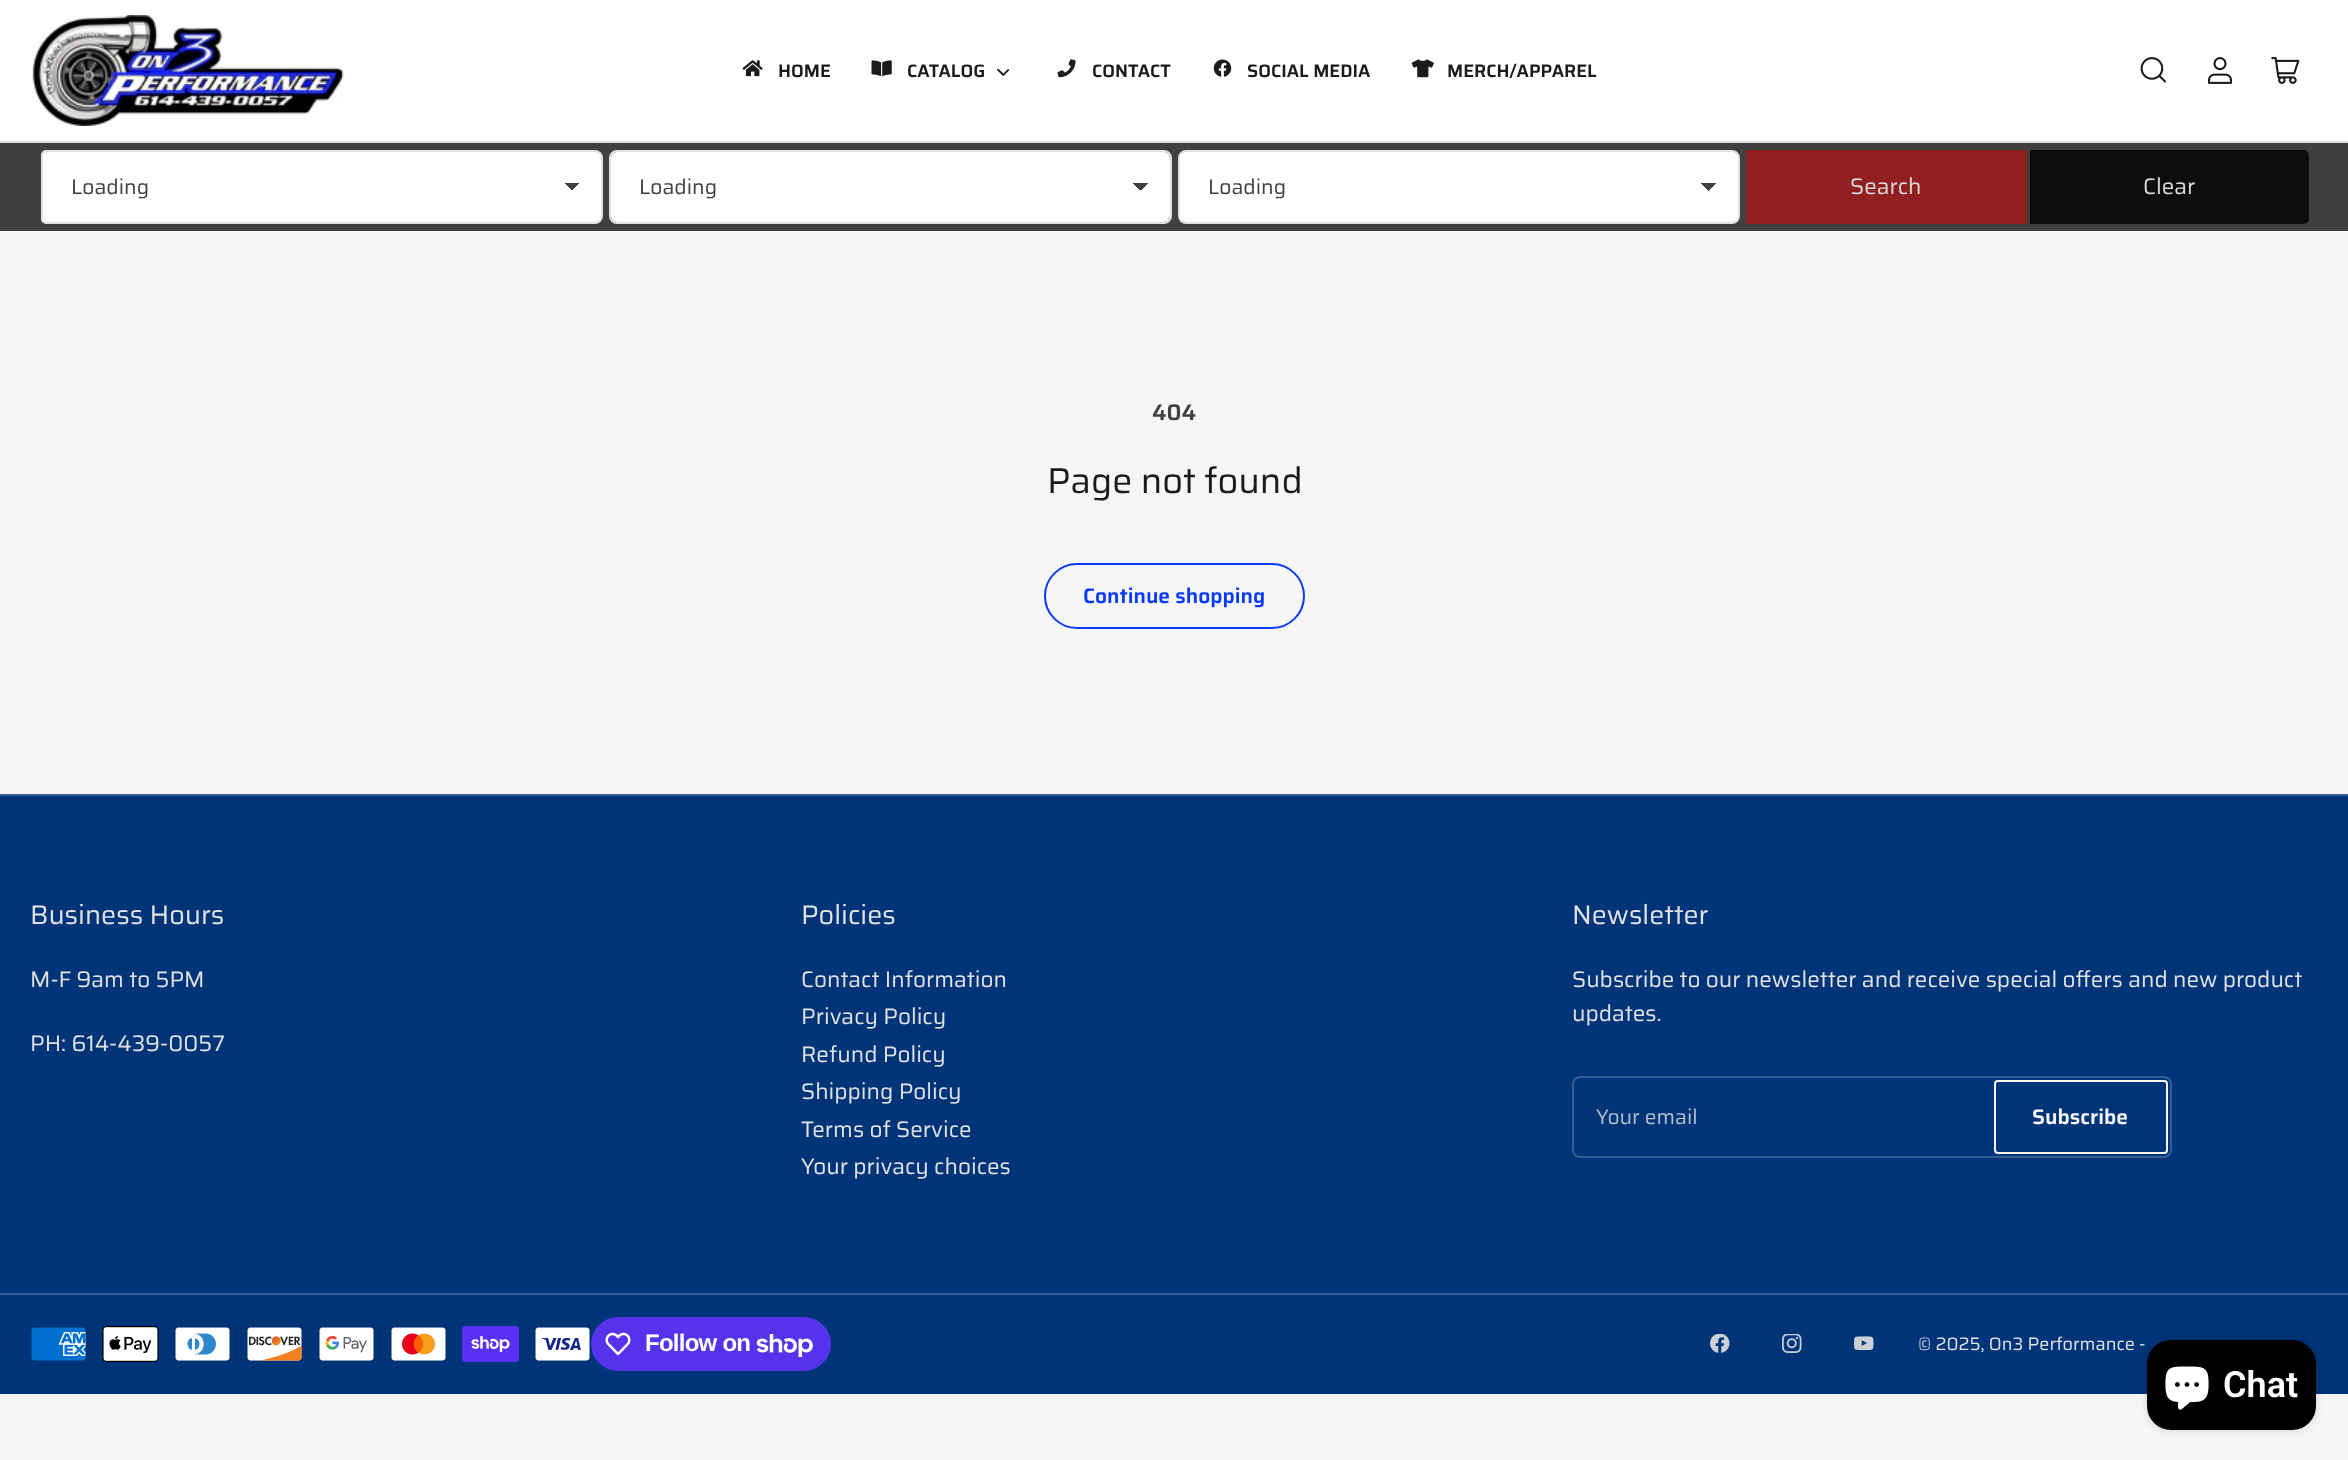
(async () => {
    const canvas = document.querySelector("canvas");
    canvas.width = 2348;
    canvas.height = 1460;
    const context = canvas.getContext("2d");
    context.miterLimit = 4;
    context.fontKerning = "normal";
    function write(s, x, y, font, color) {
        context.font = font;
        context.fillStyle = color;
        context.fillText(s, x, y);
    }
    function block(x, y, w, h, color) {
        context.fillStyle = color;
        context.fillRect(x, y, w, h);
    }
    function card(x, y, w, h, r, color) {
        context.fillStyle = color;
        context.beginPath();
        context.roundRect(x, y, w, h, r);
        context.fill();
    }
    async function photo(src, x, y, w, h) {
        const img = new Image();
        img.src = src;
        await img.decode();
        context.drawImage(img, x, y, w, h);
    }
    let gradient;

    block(0, 0, 2348, 1460, "rgb(246, 246, 246)");
    block(0, 0, 2348, 141, "rgb(255, 255, 255)");
    block(0, 141, 2348, 2, "rgb(225, 225, 225)");
    await photo("media/1.png", 30, 15, 314, 111);
    await photo("media/2.png", 742, 60, 21, 17);
    write("HOME", 778, 77, "600 18px Saira", "rgb(27, 27, 27)");
    await photo("media/3.png", 871, 60, 21, 17);
    write("CATALOG", 907, 77, "600 18px Saira", "rgb(27, 27, 27)");
    context.beginPath();
    context.moveTo(1008, 69);
    context.lineTo(1009.5, 70);
    context.lineTo(1003.5, 76);
    context.lineTo(1002.5, 74.5);
    context.closePath();
    context.fill();
    context.beginPath();
    context.moveTo(998, 68.5);
    context.lineTo(1004.5, 74.5);
    context.lineTo(1003, 76);
    context.lineTo(997, 70);
    context.closePath();
    context.fill();
    await photo("media/4.png", 1057, 59, 19, 19);
    write("CONTACT", 1092, 77, "600 18px Saira", "rgb(27, 27, 27)");
    await photo("media/5.png", 1213, 59, 19, 18);
    write("SOCIAL MEDIA", 1247, 77, "600 18px Saira", "rgb(27, 27, 27)");
    await photo("media/6.png", 1411, 59, 23, 19);
    write("MERCH/APPAREL", 1447, 77, "600 18px Saira", "rgb(27, 27, 27)");
    await photo("media/7.png", 2140, 57, 26, 26);
    await photo("media/8.png", 2207, 57, 26, 27);
    await photo("media/9.png", 2271, 57, 29, 27);
    block(0, 143, 2348, 88, "rgb(64, 64, 64)");
    context.fillStyle = "rgb(255, 255, 255)";
    context.beginPath();
    context.roundRect(42, 152, 560, 70, [3, 6, 6, 3]);
    context.fill();
    gradient = context.createLinearGradient(572, 183, 579, 191);
    gradient.addColorStop(0.5, "rgb(64, 64, 64)");
    gradient.addColorStop(0.5, "rgb(255, 255, 255)");
    context.fillStyle = gradient;
    context.fillRect(572, 183, 7, 8);
    gradient = context.createLinearGradient(564, 191, 572, 183);
    gradient.addColorStop(0.5, "rgb(255, 255, 255)");
    gradient.addColorStop(0.5, "rgb(64, 64, 64)");
    context.fillStyle = gradient;
    context.fillRect(564, 183, 8, 8);
    context.beginPath();
    context.roundRect(42, 151, 560, 72, [4, 7, 7, 4]);
    context.strokeStyle = "rgb(225, 225, 225)";
    context.lineWidth = 2;
    context.stroke();
    write("Loading", 71, 194, "21px Saira", "rgb(64, 64, 64)");
    card(611, 152, 559, 70, 6, "rgb(255, 255, 255)");
    gradient = context.createLinearGradient(1140, 183, 1148, 191);
    gradient.addColorStop(0.5, "rgb(64, 64, 64)");
    gradient.addColorStop(0.5, "rgb(255, 255, 255)");
    context.fillStyle = gradient;
    context.fillRect(1140, 183, 8, 7);
    gradient = context.createLinearGradient(1133, 191, 1140, 183);
    gradient.addColorStop(0.5, "rgb(255, 255, 255)");
    gradient.addColorStop(0.5, "rgb(64, 64, 64)");
    context.fillStyle = gradient;
    context.fillRect(1133, 183, 7, 8);
    context.beginPath();
    context.roundRect(610, 151, 561, 72, 7);
    context.stroke();
    write("Loading", 639, 194, "21px Saira", "rgb(64, 64, 64)");
    card(1179, 152, 560, 70, 6, "rgb(255, 255, 255)");
    gradient = context.createLinearGradient(1709, 183, 1716, 191);
    gradient.addColorStop(0.5, "rgb(64, 64, 64)");
    gradient.addColorStop(0.5, "rgb(255, 255, 255)");
    context.fillStyle = gradient;
    context.fillRect(1709, 183, 7, 8);
    gradient = context.createLinearGradient(1701, 191, 1709, 183);
    gradient.addColorStop(0.5, "rgb(255, 255, 255)");
    gradient.addColorStop(0.5, "rgb(64, 64, 64)");
    context.fillStyle = gradient;
    context.fillRect(1701, 183, 8, 8);
    context.beginPath();
    context.roundRect(1179, 151, 560, 72, 7);
    context.stroke();
    write("Loading", 1208, 194, "21px Saira", "rgb(64, 64, 64)");
    block(1746, 150, 281, 74, "rgb(145, 31, 31)");
    write("Search", 1850, 194, "22.5px Saira", "rgb(217, 217, 217)");
    context.fillStyle = "rgb(13, 13, 13)";
    context.beginPath();
    context.roundRect(2030, 150, 279, 74, [0, 5, 5, 0]);
    context.fill();
    write("Clear", 2143, 194, "22.5px Saira", "rgb(217, 217, 217)");
    write("404", 1152, 420, "600 22.5px Saira", "rgb(64, 64, 64)");
    write("Page not found", 1047, 493, "36px Saira", "rgb(27, 27, 27)");
    context.beginPath();
    context.roundRect(1045, 564, 259, 64, 32);
    context.strokeStyle = "rgb(11, 58, 255)";
    context.stroke();
    write("Continue shopping", 1083, 603, "600 21px Saira", "rgb(11, 58, 255)");
    block(0, 796, 2348, 497, "rgb(0, 52, 120)");
    block(0, 794, 2348, 2, "rgb(51, 93, 147)");
    write("Business Hours", 30, 924, "27px Saira", "rgb(225, 225, 225)");
    write("M-F 9am to 5PM", 30, 987, "22.5px Saira", "rgb(225, 225, 225)");
    write("PH: 614-439-0057", 30, 1051, "22.5px Saira", "rgb(225, 225, 225)");
    write("Policies", 801, 924, "27px Saira", "rgb(225, 225, 225)");
    write("Contact Information", 801, 987, "22.5px Saira", "rgb(225, 225, 225)");
    write("Privacy Policy", 801, 1024, "22.5px Saira", "rgb(225, 225, 225)");
    write("Refund Policy", 801, 1062, "22.5px Saira", "rgb(225, 225, 225)");
    write("Shipping Policy", 801, 1099, "22.5px Saira", "rgb(225, 225, 225)");
    write("Terms of Service", 801, 1137, "22.5px Saira", "rgb(225, 225, 225)");
    write("Your privacy choices", 801, 1174, "22.5px Saira", "rgb(225, 225, 225)");
    write("Newsletter", 1572, 924, "27px Saira", "rgb(225, 225, 225)");
    write("Subscribe to our newsletter and receive special offers and new product", 1572, 987, "22.5px Saira", "rgb(225, 225, 225)");
    write("updates.", 1572, 1021, "22.5px Saira", "rgb(225, 225, 225)");
    context.beginPath();
    context.roundRect(1573, 1077, 598, 80, 7);
    context.strokeStyle = "rgb(51, 93, 147)";
    context.stroke();
    write("Your email", 1596, 1124, "21px Saira", "rgb(180, 190, 204)");
    context.beginPath();
    context.roundRect(1995, 1081, 172, 72, 3);
    context.strokeStyle = "rgb(246, 246, 246)";
    context.stroke();
    write("Subscribe", 2032, 1124, "600 21px Saira", "rgb(246, 246, 246)");
    block(0, 1295, 2348, 99, "rgb(0, 52, 120)");
    block(0, 1293, 2348, 2, "rgb(51, 93, 147)");
    await photo("media/10.png", 30, 1326, 57, 36);
    await photo("media/11.png", 102, 1326, 57, 36);
    await photo("media/12.png", 174, 1326, 57, 36);
    await photo("media/13.png", 246, 1326, 57, 36);
    await photo("media/14.png", 318, 1326, 57, 36);
    await photo("media/15.png", 390, 1326, 57, 36);
    await photo("media/16.png", 462, 1326, 57, 36);
    await photo("media/17.png", 534, 1326, 57, 36);
    card(591, 1317, 240, 54, 27, "rgb(84, 51, 235)");
    await photo("media/18.png", 605, 1332, 26, 24);
    context.letterSpacing = "-0.75px";
    write("Follow on", 645, 1351, "bold 24px Liberation Sans", "rgb(255, 255, 255)");
    await photo("media/19.png", 756, 1334, 57, 23);
    await photo("media/20.png", 1710, 1334, 20, 19);
    await photo("media/21.png", 1782, 1334, 20, 19);
    await photo("media/22.png", 1854, 1336, 20, 15);
    context.letterSpacing = "0px";
    write("© 2025, On3 Performance -", 1918, 1350, "18px Saira", "rgb(225, 225, 225)");
    context.fillStyle = "rgba(0, 0, 0, 0.15)";
    context.filter = "blur(4px)";
    context.beginPath();
    context.roundRect(2147, 1340, 169, 90, 24);
    context.fill();
    context.filter = "none";
    card(2147, 1340, 169, 90, 24, "rgb(0, 0, 0)");
    await photo("media/23.png", 2165, 1366, 44, 44);
    write("Chat", 2223, 1397, "600 36px Roboto", "rgb(255, 255, 255)");
})();
